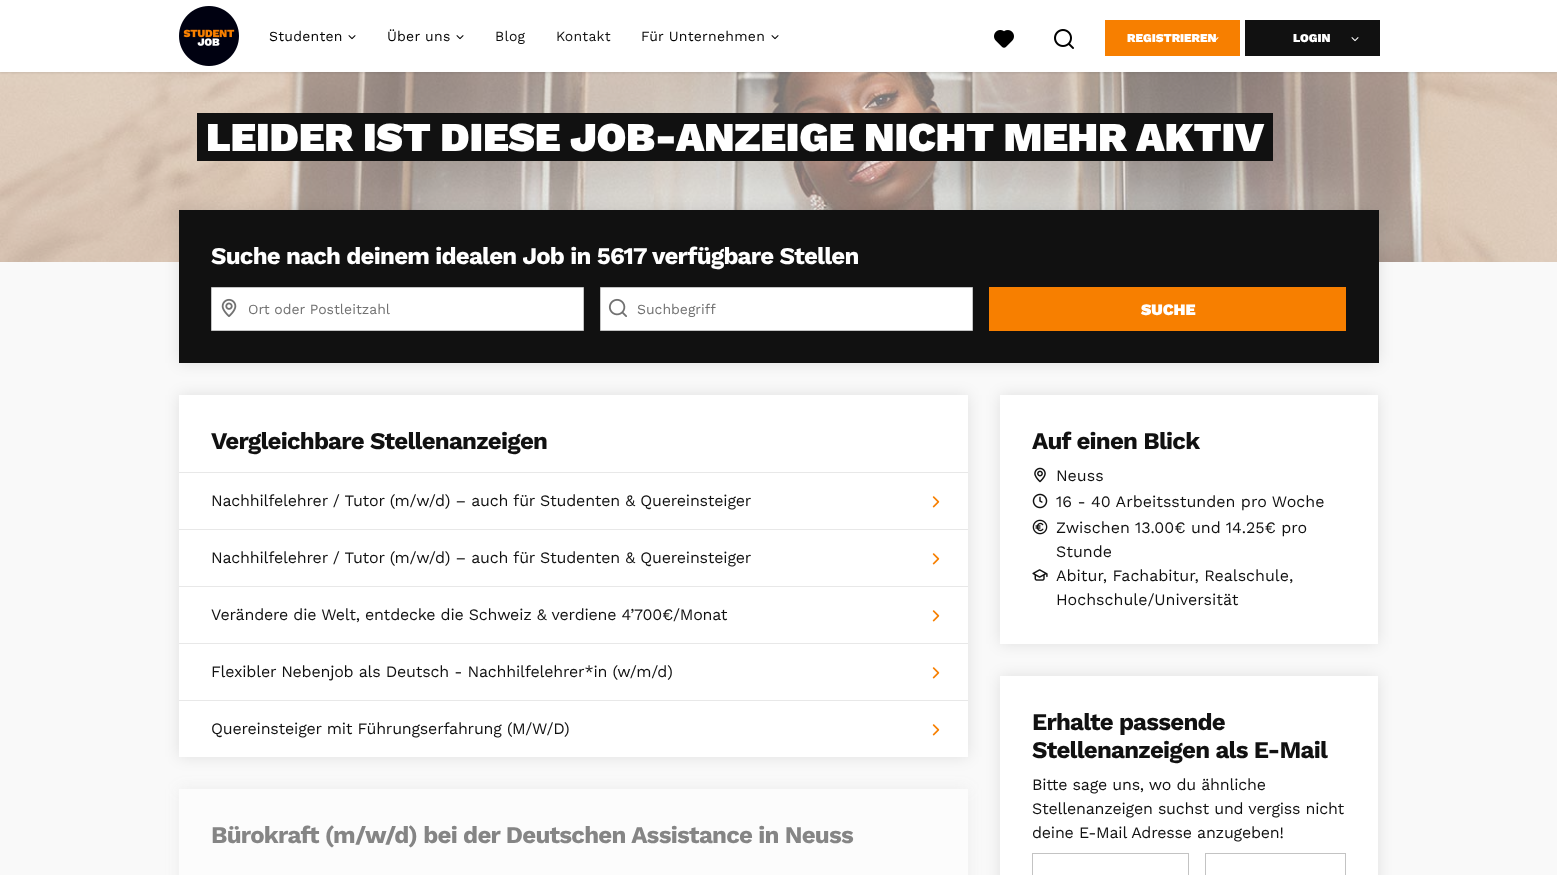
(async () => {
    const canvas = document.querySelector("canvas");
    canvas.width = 1557;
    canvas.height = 875;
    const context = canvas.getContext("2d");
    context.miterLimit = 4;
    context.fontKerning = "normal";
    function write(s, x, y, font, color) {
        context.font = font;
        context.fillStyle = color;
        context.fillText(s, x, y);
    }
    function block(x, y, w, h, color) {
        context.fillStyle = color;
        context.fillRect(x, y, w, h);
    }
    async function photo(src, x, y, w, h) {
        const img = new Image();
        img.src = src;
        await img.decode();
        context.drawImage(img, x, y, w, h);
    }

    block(0, 0, 1557, 875, "rgb(249, 249, 249)");
    block(0, 72, 1557, 190, "rgb(236, 236, 237)");
    await photo("media/7.png", 0, 72, 1557, 190);
    context.fillStyle = "rgba(0, 0, 0, 0.1)";
    context.filter = "blur(1px)";
    context.beginPath();
    context.rect(0, 1, 1557, 72);
    context.fill();
    context.filter = "none";
    block(0, 0, 1557, 72, "rgb(255, 255, 255)");
    await photo("media/1.png", 179, 6, 60, 60);
    context.letterSpacing = "0.25px";
    write("Studenten", 269, 41, "14px Work Sans", "rgb(0, 0, 0)");
    await photo("media/2.png", 348, 35, 8, 5);
    write("Über uns", 387, 41, "14px Work Sans", "rgb(0, 0, 0)");
    await photo("media/2.png", 456, 35, 8, 5);
    write("Blog", 495, 41, "14px Work Sans", "rgb(17, 17, 17)");
    write("Kontakt", 556, 41, "14px Work Sans", "rgb(17, 17, 17)");
    write("Für Unternehmen", 641, 41, "14px Work Sans", "rgb(0, 0, 0)");
    await photo("media/2.png", 771, 35, 8, 5);
    await photo("media/3.png", 994, 30, 20, 18);
    await photo("media/4.png", 1054, 29, 20, 20);
    block(1105, 20, 135, 36, "rgb(247, 127, 0)");
    context.letterSpacing = "0px";
    write("REGISTRIEREN", 1127, 42, "900 12px Work Sans", "rgb(255, 255, 255)");
    await photo("media/5.png", 1211, 37, 8, 4);
    block(1245, 20, 135, 36, "rgb(17, 17, 17)");
    write("LOGIN", 1293, 42, "900 12px Work Sans", "rgb(255, 255, 255)");
    await photo("media/6.png", 1351, 37, 8, 5);
    block(197, 113, 1076, 48, "rgb(17, 17, 17)");
    context.letterSpacing = "-0.2px";
    write("LEIDER IST DIESE JOB-ANZEIGE NICHT MEHR AKTIV", 206, 151, "900 41px Work Sans", "rgb(255, 255, 255)");
    context.fillStyle = "rgba(0, 0, 0, 0.1)";
    context.filter = "blur(7.5px)";
    context.beginPath();
    context.rect(179, 210, 1200, 153);
    context.fill();
    context.filter = "none";
    block(179, 210, 1200, 153, "rgb(17, 17, 17)");
    context.letterSpacing = "-0.75px";
    write("Suche nach deinem idealen Job in 5617 verfügbare Stellen", 211, 264, "bold 24px Work Sans", "rgb(255, 255, 255)");
    context.beginPath();
    context.rect(211.5, 287.5, 372, 43);
    context.fill();
    context.strokeStyle = "rgb(195, 195, 195)";
    context.stroke();
    await photo("media/8.png", 221, 298, 16, 19);
    context.letterSpacing = "0px";
    write("Ort oder Postleitzahl", 248, 314, "14px Work Sans", "rgb(113, 113, 113)");
    context.fillStyle = "rgb(255, 255, 255)";
    context.beginPath();
    context.rect(600.5, 287.5, 372, 43);
    context.fill();
    context.stroke();
    await photo("media/9.png", 608, 298, 19, 19);
    write("Suchbegriff", 637, 314, "14px Work Sans", "rgb(113, 113, 113)");
    block(989, 287, 357, 44, "rgb(247, 127, 0)");
    write("SUCHE", 1141, 315, "900 16px Work Sans", "rgb(255, 255, 255)");
    context.fillStyle = "rgba(0, 0, 0, 0.1)";
    context.filter = "blur(7.5px)";
    context.beginPath();
    context.rect(179, 395, 789, 362);
    context.fill();
    context.filter = "none";
    block(179, 395, 789, 362, "rgb(255, 255, 255)");
    context.letterSpacing = "-0.75px";
    write("Vergleichbare Stellenanzeigen", 211, 449, "bold 24px Work Sans", "rgb(17, 17, 17)");
    block(179, 472, 789, 1, "rgb(232, 232, 232)");
    context.letterSpacing = "-0.2px";
    write("Nachhilfelehrer / Tutor (m/w/d) – auch für Studenten & Quereinsteiger", 211, 506, "16px Work Sans", "rgb(17, 17, 17)");
    await photo("media/10.png", 932, 496, 8, 12);
    block(179, 529, 789, 1, "rgb(232, 232, 232)");
    write("Nachhilfelehrer / Tutor (m/w/d) – auch für Studenten & Quereinsteiger", 211, 563, "16px Work Sans", "rgb(17, 17, 17)");
    await photo("media/10.png", 932, 553, 8, 12);
    block(179, 586, 789, 1, "rgb(232, 232, 232)");
    write("Verändere die Welt, entdecke die Schweiz & verdiene 4’700€/Monat", 211, 620, "16px Work Sans", "rgb(17, 17, 17)");
    await photo("media/10.png", 932, 610, 8, 12);
    block(179, 643, 789, 1, "rgb(232, 232, 232)");
    write("Flexibler Nebenjob als Deutsch - Nachhilfelehrer*in (w/m/d)", 211, 677, "16px Work Sans", "rgb(17, 17, 17)");
    await photo("media/10.png", 932, 667, 8, 12);
    block(179, 700, 789, 1, "rgb(232, 232, 232)");
    write("Quereinsteiger mit Führungserfahrung (M/W/D)", 211, 734, "16px Work Sans", "rgb(17, 17, 17)");
    await photo("media/10.png", 932, 724, 8, 12);
    context.fillStyle = "rgba(124, 124, 124, 0.1)";
    context.filter = "blur(7.5px)";
    context.beginPath();
    context.rect(179, 789, 789, 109);
    context.fill();
    context.filter = "none";
    block(179, 789, 789, 86, "rgb(252, 252, 252)");
    context.letterSpacing = "-0.75px";
    write("Bürokraft (m/w/d) bei der Deutschen Assistance in Neuss", 211, 843, "bold 24px Work Sans", "rgb(133, 133, 133)");
    context.fillStyle = "rgba(0, 0, 0, 0.1)";
    context.filter = "blur(7.5px)";
    context.beginPath();
    context.rect(1000, 395, 378, 249);
    context.fill();
    context.filter = "none";
    block(1000, 395, 378, 249, "rgb(255, 255, 255)");
    write("Auf einen Blick", 1032, 449, "bold 24px Work Sans", "rgb(17, 17, 17)");
    await photo("media/11.png", 1034, 467, 12, 16);
    context.letterSpacing = "0px";
    write("Neuss", 1056, 481, "16px Work Sans", "rgb(17, 17, 17)");
    await photo("media/12.png", 1032, 493, 16, 16);
    write("16 - 40 Arbeitsstunden pro Woche", 1056, 507, "16px Work Sans", "rgb(17, 17, 17)");
    await photo("media/13.png", 1032, 519, 16, 16);
    write("Zwischen 13.00€ und 14.25€ pro", 1056, 533, "16px Work Sans", "rgb(17, 17, 17)");
    write("Stunde", 1056, 557, "16px Work Sans", "rgb(17, 17, 17)");
    await photo("media/14.png", 1032, 569, 16, 12);
    write("Abitur, Fachabitur, Realschule,", 1056, 581, "16px Work Sans", "rgb(17, 17, 17)");
    write("Hochschule/Universität", 1056, 605, "16px Work Sans", "rgb(17, 17, 17)");
    context.fillStyle = "rgba(0, 0, 0, 0.1)";
    context.filter = "blur(7.5px)";
    context.beginPath();
    context.rect(1000, 676, 378, 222);
    context.fill();
    context.filter = "none";
    block(1000, 676, 378, 199, "rgb(255, 255, 255)");
    context.letterSpacing = "-0.75px";
    write("Erhalte passende", 1032, 730, "bold 24px Work Sans", "rgb(17, 17, 17)");
    write("Stellenanzeigen als E-Mail", 1032, 758, "bold 24px Work Sans", "rgb(17, 17, 17)");
    context.letterSpacing = "-0.2px";
    write("Bitte sage uns, wo du ähnliche", 1032, 790, "16px Work Sans", "rgb(17, 17, 17)");
    write("Stellenanzeigen suchst und vergiss nicht", 1032, 814, "16px Work Sans", "rgb(17, 17, 17)");
    write("deine E-Mail Adresse anzugeben!", 1032, 838, "16px Work Sans", "rgb(17, 17, 17)");
    context.strokeRect(1032.5, 853.5, 156, 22);
    context.strokeRect(1205.5, 853.5, 140, 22);
})();
